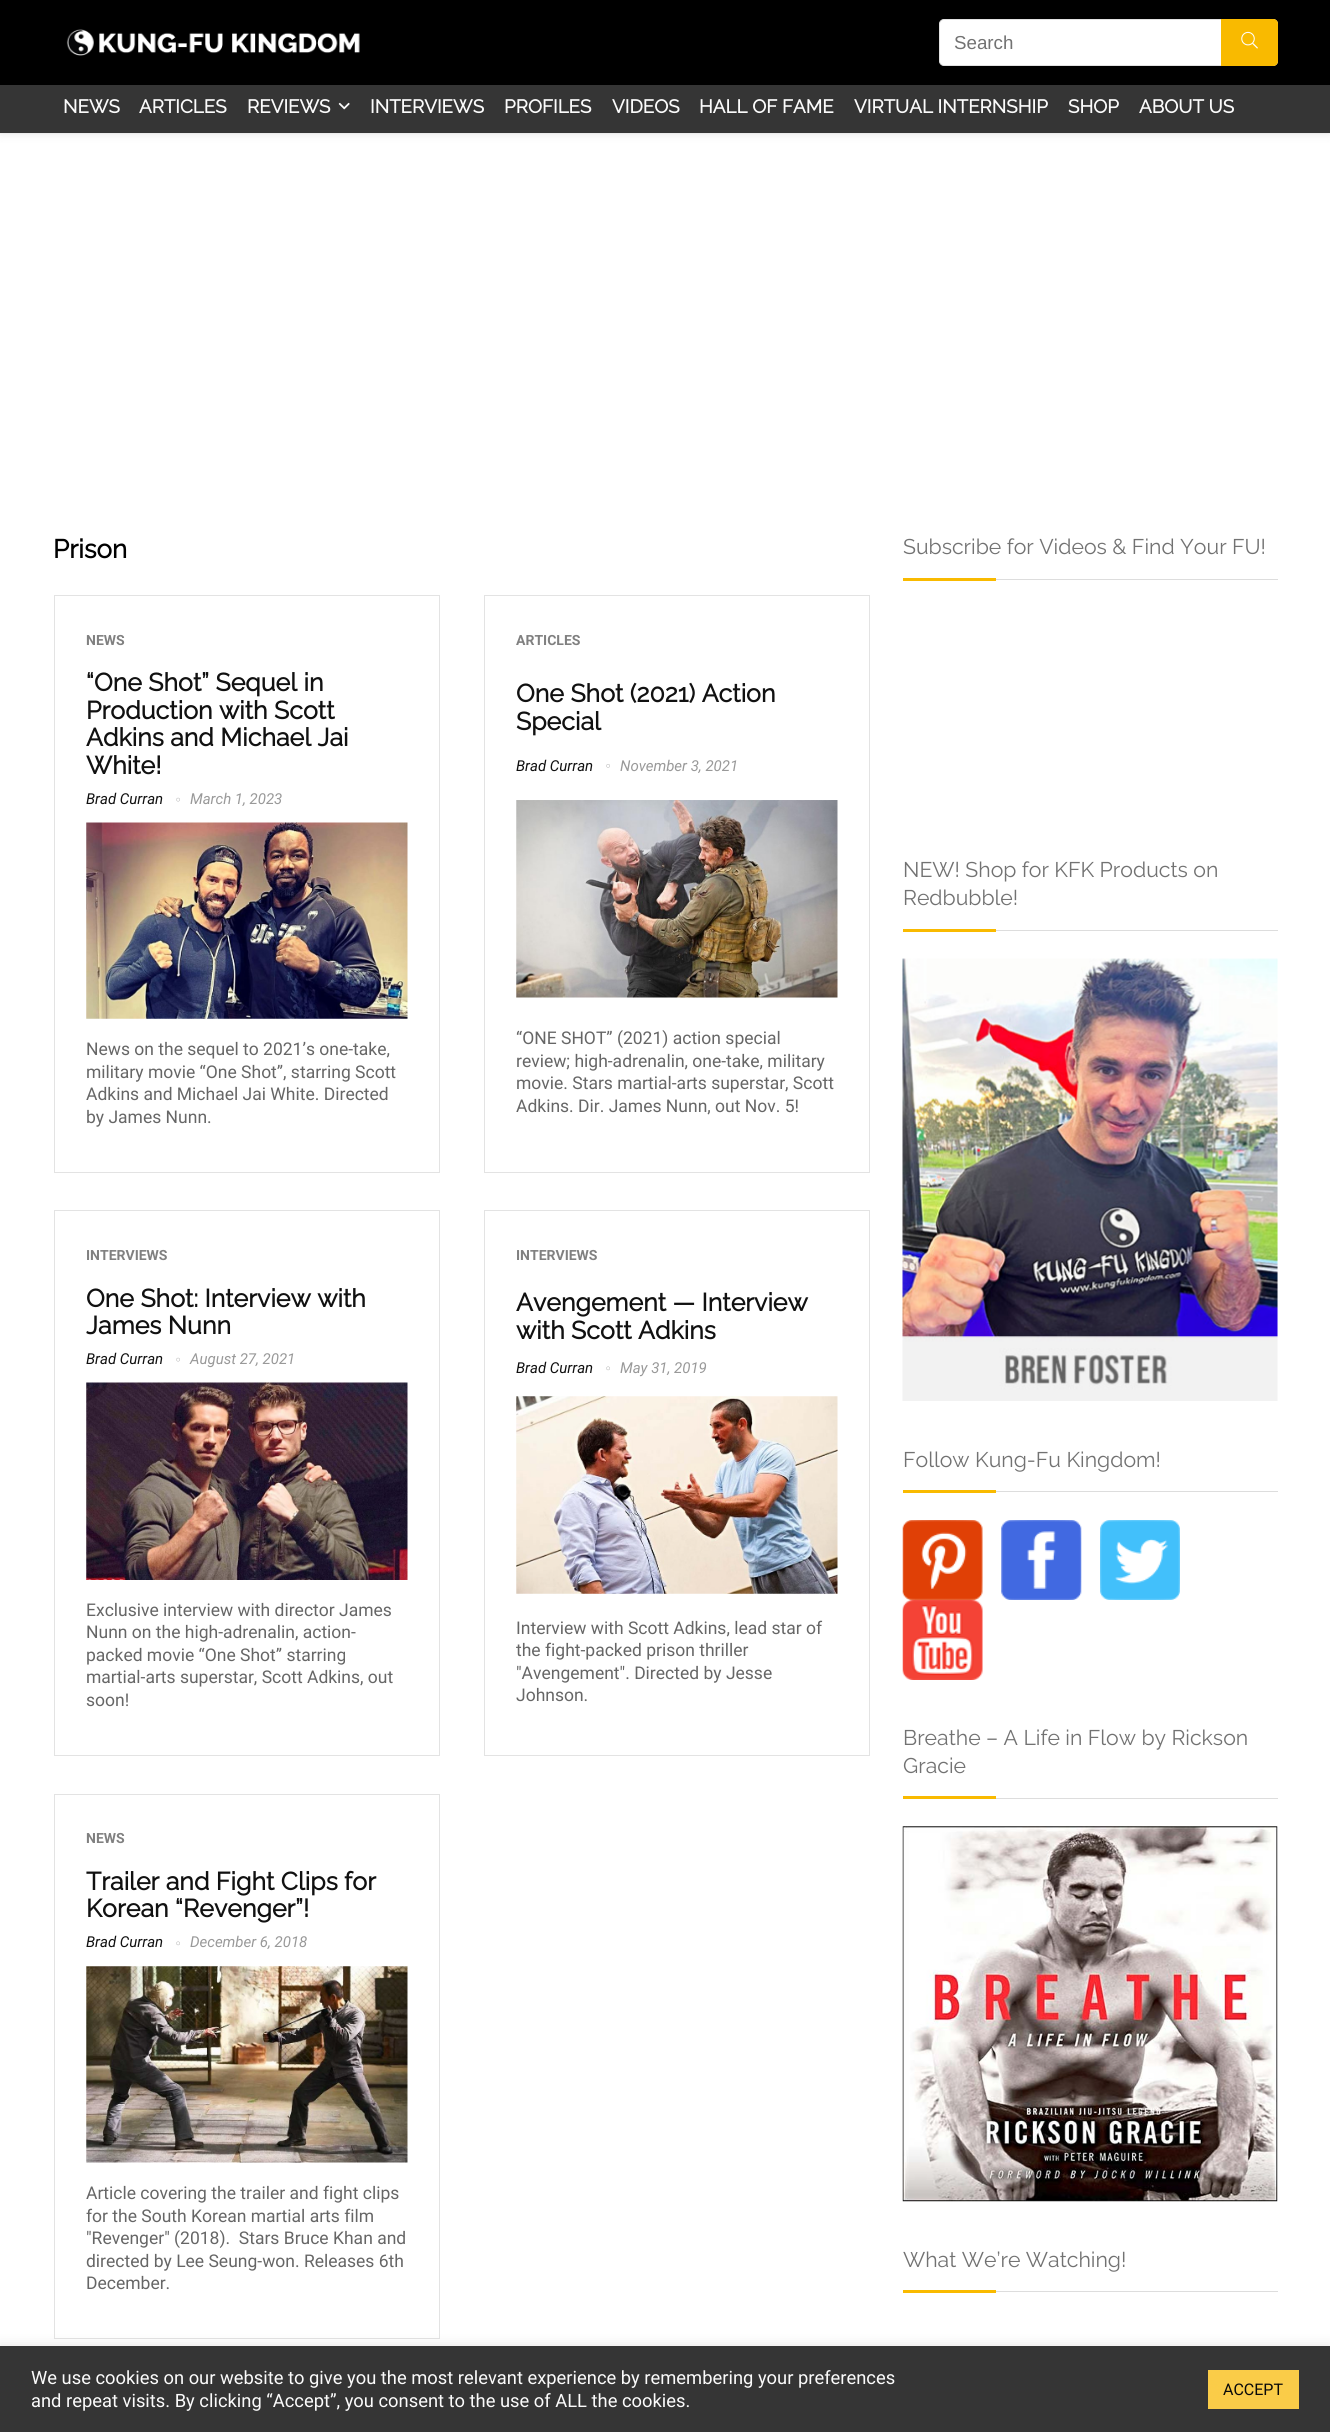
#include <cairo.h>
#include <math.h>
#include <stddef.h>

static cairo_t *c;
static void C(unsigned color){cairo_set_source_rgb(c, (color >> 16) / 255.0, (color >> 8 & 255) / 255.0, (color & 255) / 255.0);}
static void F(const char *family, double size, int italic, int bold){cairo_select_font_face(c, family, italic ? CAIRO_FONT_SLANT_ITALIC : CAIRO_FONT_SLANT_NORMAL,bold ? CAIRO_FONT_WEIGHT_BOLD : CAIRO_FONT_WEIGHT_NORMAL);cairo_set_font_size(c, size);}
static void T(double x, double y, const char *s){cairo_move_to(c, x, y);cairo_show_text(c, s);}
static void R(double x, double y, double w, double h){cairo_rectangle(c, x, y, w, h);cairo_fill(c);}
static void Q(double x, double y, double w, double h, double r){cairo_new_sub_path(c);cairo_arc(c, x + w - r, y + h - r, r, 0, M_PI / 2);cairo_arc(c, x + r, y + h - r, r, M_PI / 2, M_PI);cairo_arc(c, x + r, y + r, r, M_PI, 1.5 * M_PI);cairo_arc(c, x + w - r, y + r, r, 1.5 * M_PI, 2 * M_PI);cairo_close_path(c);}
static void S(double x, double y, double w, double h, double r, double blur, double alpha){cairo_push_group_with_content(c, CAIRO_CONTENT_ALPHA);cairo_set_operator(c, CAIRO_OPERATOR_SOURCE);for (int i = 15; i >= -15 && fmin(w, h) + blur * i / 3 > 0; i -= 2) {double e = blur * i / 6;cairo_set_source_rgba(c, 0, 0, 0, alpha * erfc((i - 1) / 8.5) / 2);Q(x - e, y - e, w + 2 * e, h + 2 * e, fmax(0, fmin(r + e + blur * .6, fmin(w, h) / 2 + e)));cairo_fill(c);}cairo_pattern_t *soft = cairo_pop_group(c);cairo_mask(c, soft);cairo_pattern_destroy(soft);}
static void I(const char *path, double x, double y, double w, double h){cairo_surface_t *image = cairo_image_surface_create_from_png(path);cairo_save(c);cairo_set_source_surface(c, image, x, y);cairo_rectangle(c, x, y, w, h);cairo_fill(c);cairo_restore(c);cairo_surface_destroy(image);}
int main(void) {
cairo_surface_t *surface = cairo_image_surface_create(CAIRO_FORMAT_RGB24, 1330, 2432);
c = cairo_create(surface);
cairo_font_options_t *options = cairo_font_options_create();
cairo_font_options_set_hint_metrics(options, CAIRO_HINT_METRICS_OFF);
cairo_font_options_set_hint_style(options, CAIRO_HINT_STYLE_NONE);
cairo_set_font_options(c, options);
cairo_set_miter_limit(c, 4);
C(0xffffff);
cairo_paint(c);
C(0x000000);
R(0,0,1330,85);
I("1.png",66,29,294,27);
C(0xffffff);
Q(939.5,19.5,338,46,4.5);
cairo_fill_preserve(c);
C(0xe1e1e1);
cairo_set_line_width(c,1);
cairo_stroke(c);
F("Liberation Sans",18.75,0,0);
C(0x727272);
T(954,49,"Search");
C(0xf9ba00);
cairo_new_path(c);
cairo_move_to(c,1221,19);
cairo_line_to(c,1273,19);
cairo_curve_to(c,1276,19,1278,21,1278,24);
cairo_line_to(c,1278,61);
cairo_curve_to(c,1278,64,1276,66,1273,66);
cairo_line_to(c,1221,66);
cairo_close_path(c);
cairo_fill(c);
I("2.png",1241,31,17,18);
cairo_rectangle(c,-.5,84.5,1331,49);
cairo_set_source_rgba(c,0,0,0,0.03);
cairo_stroke(c);
C(0x000000);
S(0,86,1330,48,0,5,.1);
C(0x353535);
R(0,85,1330,48);
F("Raleway",18.75,0,1);
C(0xfbfbfb);
T(63,113,"NEWS");
T(139,113,"ARTICLES");
T(247,113,"REVIEWS");
I("3.png",338,102,12,8);
T(370,113,"INTERVIEWS");
T(504,113,"PROFILES");
T(612,113,"VIDEOS");
T(699,113,"HALL OF FAME");
T(854,113,"VIRTUAL INTERNSHIP");
T(1068,113,"SHOP");
T(1139,113,"ABOUT US");
F("Raleway",26,0,1);
C(0x000000);
T(53,558,"Prison");
cairo_rectangle(c,54.5,595.5,385,577);
C(0xe3e3e3);
cairo_stroke(c);
F("Roboto",14,0,1);
C(0x808080);
T(86,645,"NEWS");
F("Raleway",25,0,1);
C(0x111111);
T(86,691,"“One Shot” Sequel in");
T(86,719,"Production with Scott");
T(86,746,"Adkins and Michael Jai");
T(86,774,"White!");
F("Roboto",15,1,0);
T(86,804,"Brad Curran");
I("4.png",176,797,4,5);
C(0x999999);
T(190,804,"March 1, 2023");
I("5.png",86,822,322,197);
F("Roboto",17.5,0,0);
C(0x666666);
T(86,1055,"News on the sequel to 2021’s one-take,");
T(86,1078,"military movie “One Shot”, starring Scott");
T(86,1100,"Adkins and Michael Jai White. Directed");
T(86,1123,"by James Nunn.");
cairo_rectangle(c,484.5,595.5,385,577);
C(0xe3e3e3);
cairo_stroke(c);
F("Roboto",14,0,1);
C(0x808080);
T(516,645,"ARTICLES");
F("Raleway",25,0,1);
C(0x111111);
T(516,702,"One Shot (2021) Action");
T(516,730,"Special");
F("Roboto",15,1,0);
T(516,771,"Brad Curran");
I("6.png",606,764,4,4);
C(0x999999);
T(620,771,"November 3, 2021");
I("7.png",516,800,322,198);
F("Roboto",17.5,0,0);
C(0x666666);
T(516,1044,"“ONE SHOT” (2021) action special");
T(516,1067,"review; high-adrenalin, one-take, military");
T(516,1089,"movie. Stars martial-arts superstar, Scott");
T(516,1112,"Adkins. Dir. James Nunn, out Nov. 5!");
cairo_rectangle(c,54.5,1210.5,385,545);
C(0xe3e3e3);
cairo_stroke(c);
F("Roboto",14,0,1);
C(0x808080);
T(86,1260,"INTERVIEWS");
F("Raleway",25,0,1);
C(0x111111);
T(86,1307,"One Shot: Interview with");
T(86,1334,"James Nunn");
F("Roboto",15,1,0);
T(86,1364,"Brad Curran");
I("4.png",176,1357,4,5);
C(0x999999);
T(190,1364,"August 27, 2021");
I("8.png",86,1382,322,198);
F("Roboto",17.5,0,0);
C(0x666666);
T(86,1616,"Exclusive interview with director James");
T(86,1638,"Nunn on the high-adrenalin, action-");
T(86,1661,"packed movie “One Shot” starring");
T(86,1683,"martial-arts superstar, Scott Adkins, out");
T(86,1706,"soon!");
cairo_rectangle(c,484.5,1210.5,385,545);
C(0xe3e3e3);
cairo_stroke(c);
F("Roboto",14,0,1);
C(0x808080);
T(516,1260,"INTERVIEWS");
F("Raleway",25,0,1);
C(0x111111);
T(516,1311,"Avengement — Interview");
T(516,1339,"with Scott Adkins");
F("Roboto",15,1,0);
T(516,1373,"Brad Curran");
I("9.png",606,1366,4,5);
C(0x999999);
T(620,1373,"May 31, 2019");
I("10.png",516,1396,322,198);
F("Roboto",17.5,0,0);
C(0x666666);
T(516,1634,"Interview with Scott Adkins, lead star of");
T(516,1656,"the fight-packed prison thriller");
T(516,1679,"\"Avengement\". Directed by Jesse");
T(516,1701,"Johnson.");
cairo_rectangle(c,54.5,1794.5,385,544);
C(0xe3e3e3);
cairo_stroke(c);
F("Roboto",14,0,1);
C(0x808080);
T(86,1843,"NEWS");
F("Raleway",25,0,1);
C(0x111111);
T(86,1890,"Trailer and Fight Clips for");
T(86,1917,"Korean “Revenger”!");
F("Roboto",15,1,0);
T(86,1947,"Brad Curran");
I("9.png",176,1941,4,5);
C(0x999999);
T(190,1947,"December 6, 2018");
I("11.png",86,1966,322,197);
F("Roboto",17.5,0,0);
C(0x666666);
T(86,2199,"Article covering the trailer and fight clips");
T(86,2222,"for the South Korean martial arts film");
T(86,2244,"\"Revenger\" (2018).  Stars Bruce Khan and");
T(86,2267,"directed by Lee Seung-won. Releases 6th");
T(86,2289,"December.");
C(0xdddddd);
R(996,579,282,1);
F("Raleway Thin",21.25,0,0);
C(0x727272);
T(903,554,"Subscribe for Videos & Find Your FU!");
C(0xf9ba00);
R(903,578,93,3);
C(0xdddddd);
R(996,930,282,1);
C(0x727272);
T(903,877,"NEW! Shop for KFK Products on");
T(903,905,"Redbubble!");
C(0xf9ba00);
R(903,929,93,3);
I("12.png",902,958,376,443);
C(0xdddddd);
R(996,1491,282,1);
C(0x727272);
T(903,1467,"Follow Kung-Fu Kingdom!");
C(0xf9ba00);
R(903,1490,93,3);
I("13.png",902,1520,81,80);
I("14.png",1001,1520,81,80);
I("15.png",1100,1520,80,80);
I("16.png",902,1600,81,80);
C(0xdddddd);
R(996,1798,282,1);
C(0x727272);
T(903,1745,"Breathe – A Life in Flow by Rickson");
T(903,1773,"Gracie");
C(0xf9ba00);
R(903,1796,93,3);
I("17.png",902,1826,376,376);
C(0xdddddd);
R(996,2291,282,1);
C(0x727272);
T(903,2267,"What We’re Watching!");
C(0xf9ba00);
R(903,2290,93,3);
C(0xacabab);
S(0,2345,1330,86,0,6,.3);
C(0x353535);
R(0,2346,1330,86);
F("Roboto",18.35,0,0);
C(0xfbfbfb);
T(31,2384,"We use cookies on our website to give you the most relevant experience by remembering your preferences");
T(31,2407,"and repeat visits. By clicking “Accept”, you consent to the use of ALL the cookies.");
C(0xfacc48);
R(1208,2370,91,39);
F("Roboto",16,0,0);
C(0x0a0a0a);
T(1223,2395,"ACCEPT");
cairo_surface_write_to_png(surface, "o.png");
cairo_font_options_destroy(options);
cairo_destroy(c);
cairo_surface_destroy(surface);
return 0;
}
